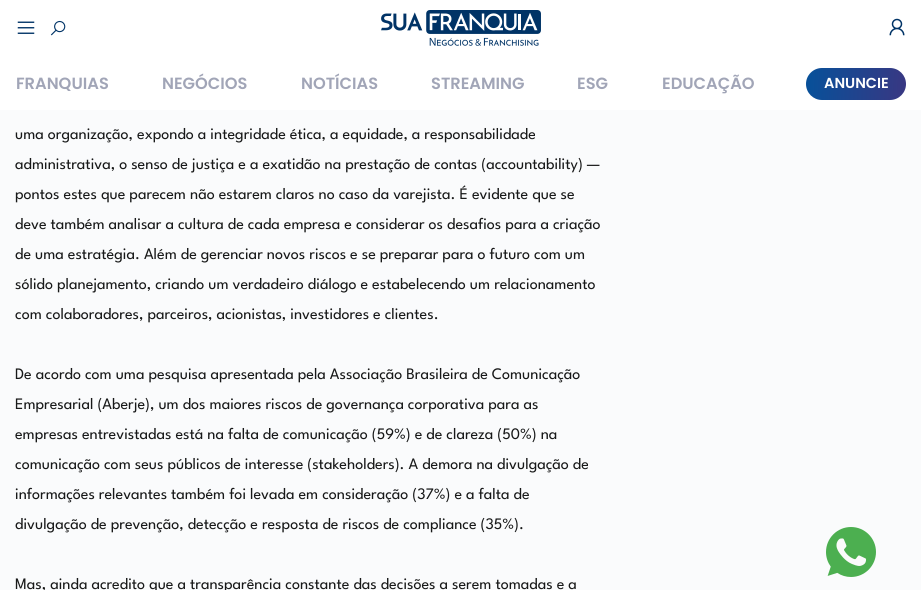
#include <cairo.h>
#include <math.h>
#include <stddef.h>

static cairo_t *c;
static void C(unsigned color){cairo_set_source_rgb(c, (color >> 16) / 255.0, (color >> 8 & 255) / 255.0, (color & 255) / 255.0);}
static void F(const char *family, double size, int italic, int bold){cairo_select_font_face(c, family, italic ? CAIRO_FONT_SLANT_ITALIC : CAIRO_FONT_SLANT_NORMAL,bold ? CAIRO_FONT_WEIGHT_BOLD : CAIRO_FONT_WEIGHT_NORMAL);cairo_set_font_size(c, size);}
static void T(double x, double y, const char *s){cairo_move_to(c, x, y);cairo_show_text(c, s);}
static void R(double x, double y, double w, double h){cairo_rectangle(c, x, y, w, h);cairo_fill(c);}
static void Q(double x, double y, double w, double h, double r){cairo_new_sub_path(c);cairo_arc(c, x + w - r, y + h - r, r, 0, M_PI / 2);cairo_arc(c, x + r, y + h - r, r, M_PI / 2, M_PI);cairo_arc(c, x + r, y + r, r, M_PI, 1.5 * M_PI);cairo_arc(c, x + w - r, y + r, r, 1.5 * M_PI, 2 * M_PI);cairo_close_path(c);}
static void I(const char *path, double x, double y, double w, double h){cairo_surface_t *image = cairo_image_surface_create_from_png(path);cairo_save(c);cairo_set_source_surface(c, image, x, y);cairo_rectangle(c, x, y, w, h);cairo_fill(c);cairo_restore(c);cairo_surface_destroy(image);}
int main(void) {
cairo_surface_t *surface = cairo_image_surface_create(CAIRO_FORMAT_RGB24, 921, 590);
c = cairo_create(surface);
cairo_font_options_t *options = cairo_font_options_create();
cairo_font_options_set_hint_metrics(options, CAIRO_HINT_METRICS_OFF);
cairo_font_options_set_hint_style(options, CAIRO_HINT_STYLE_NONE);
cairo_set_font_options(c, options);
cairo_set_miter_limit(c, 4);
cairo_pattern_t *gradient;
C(0xfafbfc);
cairo_paint(c);
C(0xffffff);
R(0,0,921,110);
I("1.png",17,21,18,13);
I("2.png",50,20,16,16);
I("3.png",381,10,160,36);
I("4.png",889,18,16,18);
F("Poppins SemiBold",16.25,0,0);
C(0xa1a5b7);
T(16,89,"FRANQUIAS");
T(162,89,"NEGÓCIOS");
T(301,89,"NOTÍCIAS");
T(431,89,"STREAMING");
T(577,89,"ESG");
T(662,89,"EDUCAÇÃO");
gradient = cairo_pattern_create_linear(805,80,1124,105);
cairo_pattern_add_color_stop_rgba(gradient,.01,0.031,0.314,0.6,1);
cairo_pattern_add_color_stop_rgba(gradient,1,0.647,0,0.314,1);
cairo_set_source(c,gradient);
cairo_pattern_destroy(gradient);
Q(806,68,100,32,16);
cairo_fill(c);
F("Poppins SemiBold",14.5,0,0);
C(0xffffff);
T(824,88,"ANUNCIE");
F("League Spartan Thin",16,0,0);
C(0x181919);
T(15,139,"uma organização, expondo a integridade ética, a equidade, a responsabilidade");
T(15,169,"administrativa, o senso de justiça e a exatidão na prestação de contas (accountability) —");
T(15,199,"pontos estes que parecem não estarem claros no caso da varejista. É evidente que se");
T(15,229,"deve também analisar a cultura de cada empresa e considerar os desafios para a criação");
T(15,259,"de uma estratégia. Além de gerenciar novos riscos e se preparar para o futuro com um");
T(15,289,"sólido planejamento, criando um verdadeiro diálogo e estabelecendo um relacionamento");
T(15,319,"com colaboradores, parceiros, acionistas, investidores e clientes.");
T(15,379,"De acordo com uma pesquisa apresentada pela Associação Brasileira de Comunicação");
T(15,409,"Empresarial (Aberje), um dos maiores riscos de governança corporativa para as");
T(15,439,"empresas entrevistadas está na falta de comunicação (59%) e de clareza (50%) na");
T(15,469,"comunicação com seus públicos de interesse (stakeholders). A demora na divulgação de");
T(15,499,"informações relevantes também foi levada em consideração (37%) e a falta de");
T(15,529,"divulgação de prevenção, detecção e resposta de riscos de compliance (35%).");
T(15,589,"Mas, ainda acredito que a transparência constante das decisões a serem tomadas e a");
I("5.png",826,527,50,50);
cairo_surface_write_to_png(surface, "o.png");
cairo_font_options_destroy(options);
cairo_destroy(c);
cairo_surface_destroy(surface);
return 0;
}
